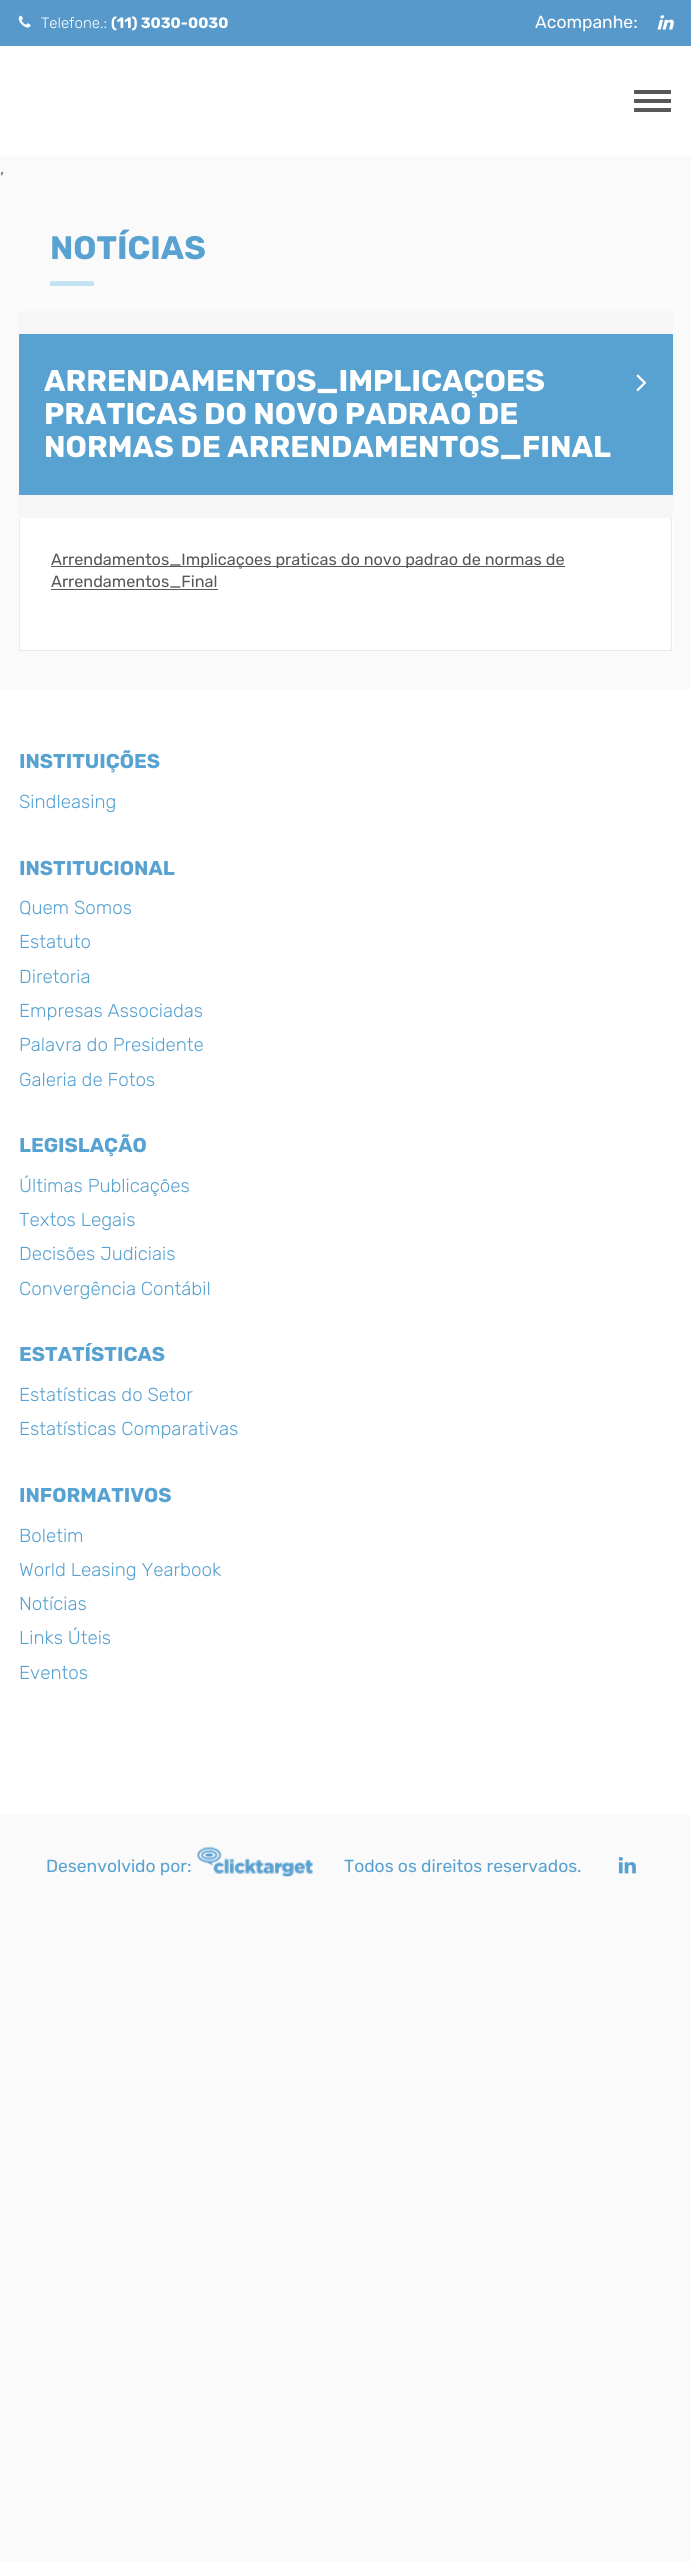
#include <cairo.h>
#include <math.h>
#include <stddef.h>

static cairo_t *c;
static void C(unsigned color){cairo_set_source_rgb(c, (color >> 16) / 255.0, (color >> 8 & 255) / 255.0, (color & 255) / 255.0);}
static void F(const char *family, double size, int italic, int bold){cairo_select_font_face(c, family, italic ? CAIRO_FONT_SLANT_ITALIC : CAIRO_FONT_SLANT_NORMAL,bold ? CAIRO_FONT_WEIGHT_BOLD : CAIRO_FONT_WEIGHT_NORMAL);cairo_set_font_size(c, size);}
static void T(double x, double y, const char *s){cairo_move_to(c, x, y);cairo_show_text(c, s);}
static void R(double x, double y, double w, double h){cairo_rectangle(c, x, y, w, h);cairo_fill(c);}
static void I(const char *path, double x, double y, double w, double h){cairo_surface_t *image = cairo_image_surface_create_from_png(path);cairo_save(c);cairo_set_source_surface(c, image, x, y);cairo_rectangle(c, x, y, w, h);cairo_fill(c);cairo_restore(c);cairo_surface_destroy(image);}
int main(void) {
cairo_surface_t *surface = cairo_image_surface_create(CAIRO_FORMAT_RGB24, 691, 2562);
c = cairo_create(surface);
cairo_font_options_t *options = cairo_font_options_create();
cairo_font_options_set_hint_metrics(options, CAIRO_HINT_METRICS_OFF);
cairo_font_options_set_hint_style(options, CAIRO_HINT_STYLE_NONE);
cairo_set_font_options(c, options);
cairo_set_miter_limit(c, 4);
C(0xfafafa);
cairo_paint(c);
C(0x5799ca);
R(0,0,691,46);
I("1.png",18,15,13,13);
F("Rubik Light",15,0,0);
C(0xffffff);
T(41,28,"Telefone.:");
F("Rubik",15,0,1);
T(111,28,"(11) 3030-0030");
F("Rubik",17.5,0,0);
T(535,28,"Acompanhe:");
I("2.png",657,15,17,15);
R(0,46,691,110);
C(0x575757);
R(634,90,37,4);
R(634,99,37,4);
R(634,108,37,4);
C(0x787878);
T(0,174,",");
F("Rubik",32.5,0,1);
C(0x57a2d1);
T(50,259,"NOTÍCIAS");
C(0xc2e3f2);
R(50,281,44,5);
C(0xf6f6f6);
R(19,311,654,207);
C(0x57a2d1);
R(19,334,654,161);
F("Rubik",30,0,1);
C(0xffffff);
T(44,391,"ARRENDAMENTOS_IMPLICAÇOES");
I("3.png",636,374,11,18);
T(44,424,"PRATICAS DO NOVO PADRAO DE");
T(44,457,"NORMAS DE ARRENDAMENTOS_FINAL");
R(20,518,653,132);
C(0xe9e9e9);
R(671,518,1,133);
R(19,650,654,1);
R(19,518,1,133);
C(0x575757);
R(51,566,514,1);
F("Rubik",16.25,0,0);
T(51,565,"Arrendamentos_Implicaçoes praticas do novo padrao de normas de");
T(51,587,"Arrendamentos_Final");
R(51,589,167,1);
C(0xffffff);
R(0,689,691,1126);
F("Rubik",20,0,1);
C(0x57a2d1);
T(19,768,"INSTITUIÇÕES");
F("Rubik Light",18.75,0,0);
T(19,808,"Sindleasing");
F("Rubik",20,0,1);
T(19,875,"INSTITUCIONAL");
F("Rubik Light",18.75,0,0);
T(19,914,"Quem Somos");
T(19,948,"Estatuto");
T(19,983,"Diretoria");
T(19,1017,"Empresas Associadas");
T(19,1051,"Palavra do Presidente");
T(19,1086,"Galeria de Fotos");
F("Rubik",20,0,1);
T(19,1152,"LEGISLAÇÃO");
F("Rubik Light",18.75,0,0);
T(19,1192,"Últimas Publicações");
T(19,1226,"Textos Legais");
T(19,1260,"Decisões Judiciais");
T(19,1295,"Convergência Contábil");
F("Rubik",20,0,1);
T(19,1361,"ESTATÍSTICAS");
F("Rubik Light",18.75,0,0);
T(19,1401,"Estatísticas do Setor");
T(19,1435,"Estatísticas Comparativas");
F("Rubik",20,0,1);
T(19,1502,"INFORMATIVOS");
F("Rubik Light",18.75,0,0);
T(19,1542,"Boletim");
T(19,1576,"World Leasing Yearbook");
T(19,1610,"Notícias");
T(19,1644,"Links Úteis");
T(19,1679,"Eventos");
F("Rubik",17.5,0,0);
T(46,1872,"Desenvolvido por:");
I("4.png",197,1847,116,30);
T(344,1872,"Todos os direitos reservados.");
I("5.png",618,1857,18,17);
cairo_surface_write_to_png(surface, "o.png");
cairo_font_options_destroy(options);
cairo_destroy(c);
cairo_surface_destroy(surface);
return 0;
}
